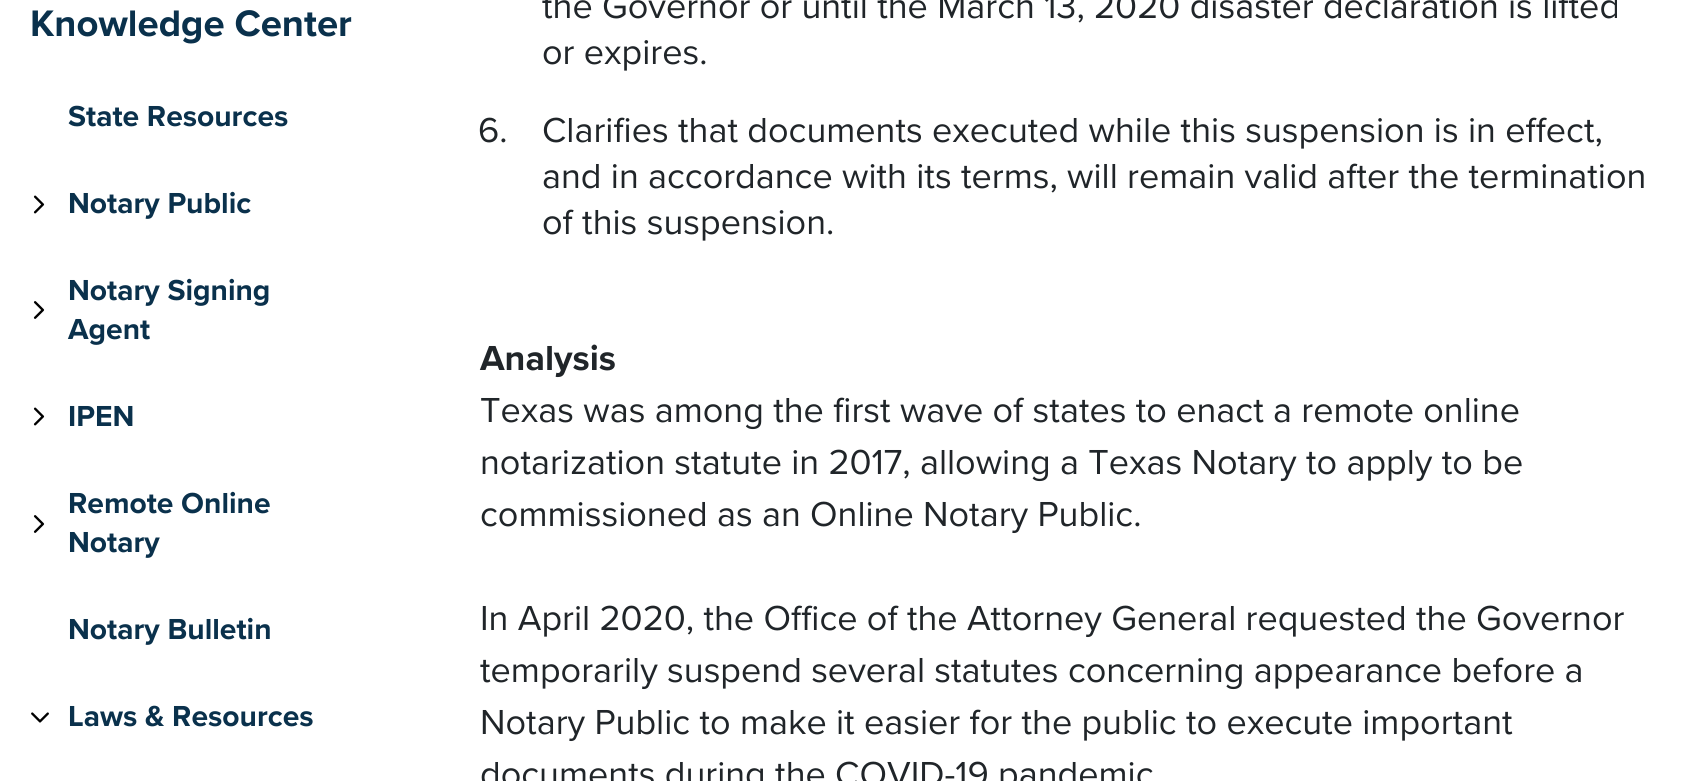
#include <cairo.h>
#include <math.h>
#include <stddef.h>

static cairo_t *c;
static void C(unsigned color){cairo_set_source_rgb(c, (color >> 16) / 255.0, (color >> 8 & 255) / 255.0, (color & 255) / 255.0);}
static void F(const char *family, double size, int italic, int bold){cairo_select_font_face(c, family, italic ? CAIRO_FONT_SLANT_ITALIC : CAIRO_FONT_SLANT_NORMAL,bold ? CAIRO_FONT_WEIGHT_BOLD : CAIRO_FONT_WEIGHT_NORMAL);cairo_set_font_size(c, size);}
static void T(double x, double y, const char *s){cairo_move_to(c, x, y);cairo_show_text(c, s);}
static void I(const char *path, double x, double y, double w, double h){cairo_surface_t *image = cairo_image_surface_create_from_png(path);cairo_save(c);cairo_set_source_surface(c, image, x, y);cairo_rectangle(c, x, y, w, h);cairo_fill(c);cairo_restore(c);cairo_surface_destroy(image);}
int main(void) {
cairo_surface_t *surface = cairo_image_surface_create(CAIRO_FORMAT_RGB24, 1702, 781);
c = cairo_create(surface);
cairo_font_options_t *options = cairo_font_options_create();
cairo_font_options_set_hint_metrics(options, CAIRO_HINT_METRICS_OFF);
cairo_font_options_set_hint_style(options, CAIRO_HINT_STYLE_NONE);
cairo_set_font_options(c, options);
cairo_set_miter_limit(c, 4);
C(0xffffff);
cairo_paint(c);
F("Proxima Nova",38.25,0,1);
C(0x0a314c);
T(30,36,"Knowledge Center");
F("Proxima Nova",30,0,1);
T(68,126,"State Resources");
I("1.png",33,195,12,19);
T(68,213,"Notary Public");
I("2.png",33,301,12,18);
T(68,300,"Notary Signing");
T(68,339,"Agent");
I("1.png",33,407,12,19);
T(68,426,"IPEN");
I("2.png",33,515,12,18);
T(68,513,"Remote Online");
T(68,552,"Notary");
T(68,639,"Notary Bulletin");
I("3.png",31,712,18,11);
T(68,726,"Laws & Resources");
F("Proxima Nova",36,0,0);
C(0x202529);
T(542,18,"the Governor or until the March 13, 2020 disaster declaration is lifted");
T(542,64,"or expires.");
T(478,142,"6.");
T(542,142,"Clarifies that documents executed while this suspension is in effect,");
T(542,188,"and in accordance with its terms, will remain valid after the termination");
T(542,234,"of this suspension.");
F("Proxima Nova",36,0,1);
T(480,370,"Analysis");
F("Proxima Nova",36,0,0);
T(480,422,"Texas was among the first wave of states to enact a remote online");
T(480,474,"notarization statute in 2017, allowing a Texas Notary to apply to be");
T(480,526,"commissioned as an Online Notary Public.");
T(480,630,"In April 2020, the Office of the Attorney General requested the Governor");
T(480,682,"temporarily suspend several statutes concerning appearance before a");
T(480,734,"Notary Public to make it easier for the public to execute important");
T(480,786,"documents during the COVID-19 pandemic");
cairo_surface_write_to_png(surface, "o.png");
cairo_font_options_destroy(options);
cairo_destroy(c);
cairo_surface_destroy(surface);
return 0;
}
